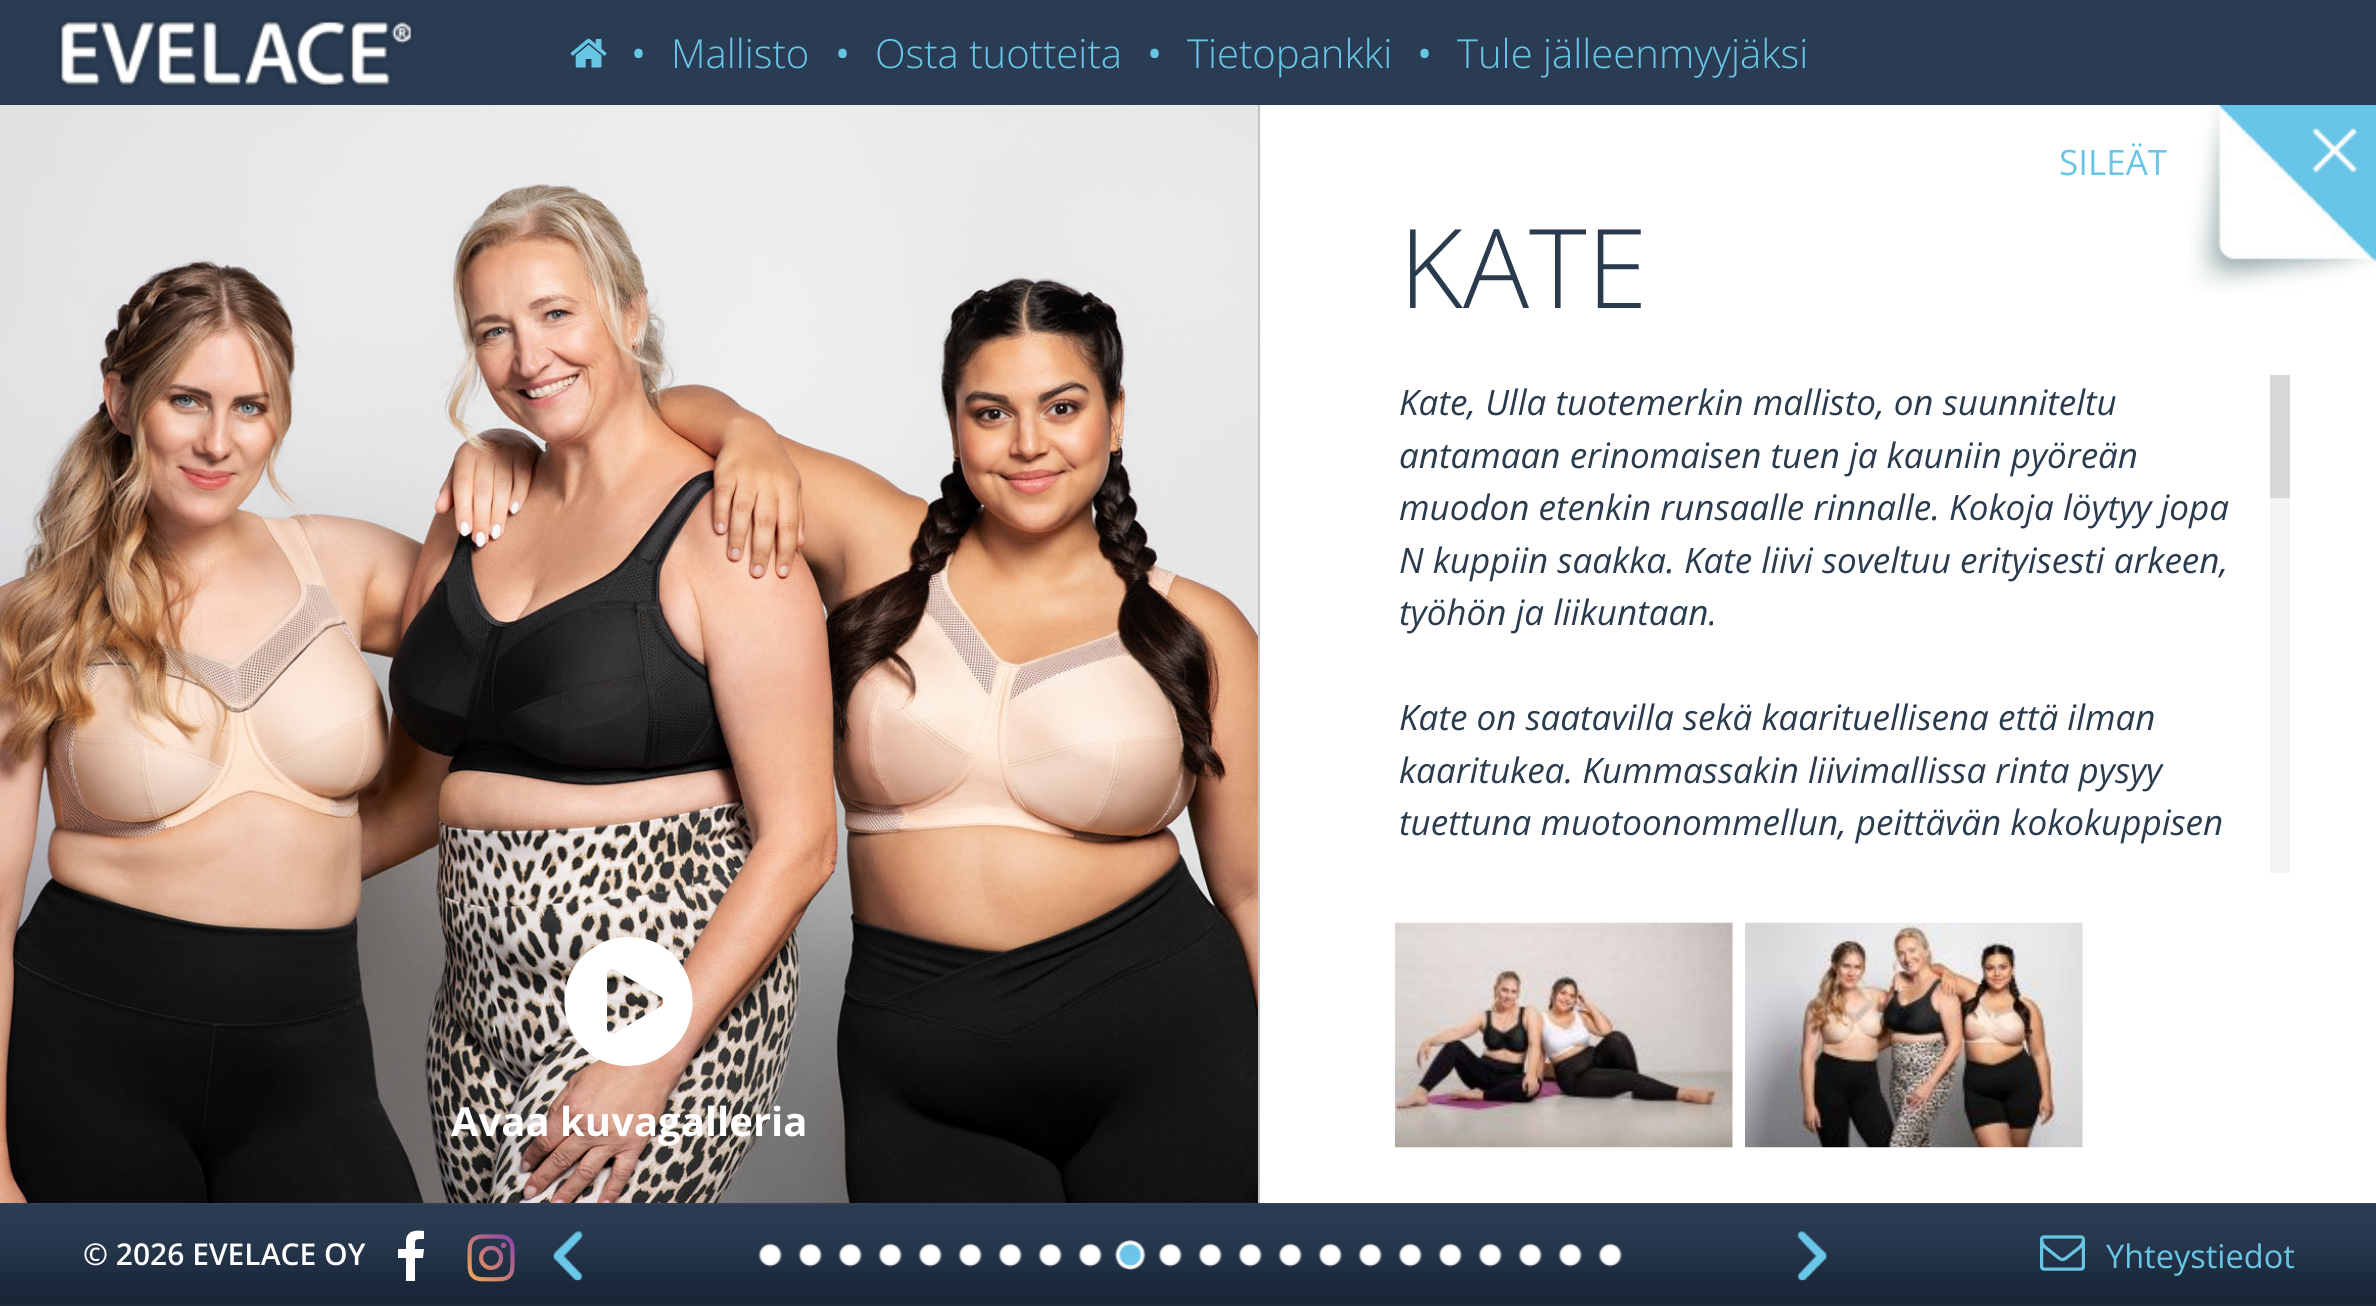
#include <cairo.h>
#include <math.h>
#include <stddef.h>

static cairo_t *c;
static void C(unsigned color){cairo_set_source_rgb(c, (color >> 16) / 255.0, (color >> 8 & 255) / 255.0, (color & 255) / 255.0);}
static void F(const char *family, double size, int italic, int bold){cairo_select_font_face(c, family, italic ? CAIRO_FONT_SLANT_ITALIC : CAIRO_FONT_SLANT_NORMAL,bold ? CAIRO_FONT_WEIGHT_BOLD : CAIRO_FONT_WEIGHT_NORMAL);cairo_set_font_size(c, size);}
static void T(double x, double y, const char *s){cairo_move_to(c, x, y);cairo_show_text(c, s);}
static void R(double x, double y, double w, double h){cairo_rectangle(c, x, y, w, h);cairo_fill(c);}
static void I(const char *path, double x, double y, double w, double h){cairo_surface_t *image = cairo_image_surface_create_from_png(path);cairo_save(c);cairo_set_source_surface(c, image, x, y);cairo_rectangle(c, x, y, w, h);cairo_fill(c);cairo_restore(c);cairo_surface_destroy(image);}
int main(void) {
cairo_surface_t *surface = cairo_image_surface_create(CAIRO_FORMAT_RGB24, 2376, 1306);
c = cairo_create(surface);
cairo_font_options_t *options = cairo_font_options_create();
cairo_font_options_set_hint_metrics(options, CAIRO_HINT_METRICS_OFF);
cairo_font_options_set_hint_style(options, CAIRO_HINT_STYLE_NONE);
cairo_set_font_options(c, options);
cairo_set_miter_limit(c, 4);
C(0xffffff);
cairo_paint(c);
C(0x2a3c53);
R(0,0,2376,105);
I("1.png",57,18,357,71);
I("2.png",570,38,37,30);
F("Open Sans",40,0,0);
C(0x68c6e5);
T(631,68,"•");
F("Open Sans Light",40,0,0);
T(671,68,"Mallisto");
F("Open Sans",40,0,0);
T(835,68,"•");
F("Open Sans Light",40,0,0);
T(875,68,"Osta tuotteita");
F("Open Sans",40,0,0);
T(1147,68,"•");
F("Open Sans Light",40,0,0);
T(1187,68,"Tietopankki");
F("Open Sans",40,0,0);
T(1417,68,"•");
F("Open Sans Light",40,0,0);
T(1457,68,"Tule jälleenmyyjäksi");
F("Open Sans",35,0,0);
T(2059,175,"SILEÄT");
I("3.png",2189,105,187,188);
F("Open Sans Light",110,0,0);
C(0x2a3b4d);
T(1399,308,"KATE");
F("Open Sans",35,1,0);
T(1399,415,"Kate, Ulla tuotemerkin mallisto, on suunniteltu");
T(1399,468,"antamaan erinomaisen tuen ja kauniin pyöreän");
T(1399,520,"muodon etenkin runsaalle rinnalle. Kokoja löytyy jopa");
T(1399,573,"N kuppiin saakka. Kate liivi soveltuu erityisesti arkeen,");
T(1399,625,"työhön ja liikuntaan.");
T(1399,730,"Kate on saatavilla sekä kaarituellisena että ilman");
T(1399,783,"kaaritukea. Kummassakin liivimallissa rinta pysyy");
T(1399,835,"tuettuna muotoonommellun, peittävän kokokuppisen");
C(0xf4f4f4);
R(2270,498,20,375);
C(0xd8d8d8);
R(2270,375,20,123);
I("4.png",1395,922,338,226);
I("5.png",1745,922,338,226);
I("6.png",0,105,1258,1098);
C(0xc4c4c4);
R(1258,105,2,1098);
C(0xffffff);
cairo_new_path(c);
cairo_move_to(c,596,946);
cairo_curve_to(c,607,939,620,936,633,937);
cairo_curve_to(c,696,941,715,1025,661,1057);
cairo_curve_to(c,650,1064,637,1066,624,1066);
cairo_curve_to(c,561,1062,542,978,596,946);
cairo_close_path(c);
cairo_move_to(c,661,1006);
cairo_curve_to(c,663,1005,663,1003,663,1001);
cairo_curve_to(c,663,999,663,998,661,997);
cairo_line_to(c,615,970);
cairo_curve_to(c,613,969,612,969,610,970);
cairo_curve_to(c,608,971,607,973,607,975);
cairo_line_to(c,607,1028);
cairo_curve_to(c,607,1030,608,1032,610,1033);
cairo_line_to(c,613,1034);
cairo_line_to(c,615,1033);
cairo_close_path(c);
cairo_fill(c);
F("Open Sans",40,0,1);
T(451,1136,"Avaa kuvagalleria");
I("7.png",0,1203,2376,103);
F("Open Sans SemiBold",30,0,0);
T(83,1265,"© 2026 EVELACE OY");
cairo_new_path(c);
cairo_move_to(c,424,1231);
cairo_line_to(c,424,1239);
cairo_curve_to(c,414,1239,415,1239,415,1249);
cairo_line_to(c,424,1249);
cairo_line_to(c,423,1258);
cairo_line_to(c,415,1258);
cairo_line_to(c,415,1281);
cairo_line_to(c,406,1281);
cairo_line_to(c,406,1258);
cairo_line_to(c,398,1258);
cairo_line_to(c,398,1249);
cairo_line_to(c,406,1249);
cairo_line_to(c,406,1240);
cairo_curve_to(c,407,1230,417,1230,424,1231);
cairo_close_path(c);
cairo_fill(c);
I("8.png",467,1234,48,48);
I("9.png",553,1231,30,50);
I("10.png",758,1243,24,24);
I("11.png",798,1243,24,24);
I("10.png",838,1243,24,24);
I("10.png",878,1243,24,24);
I("10.png",918,1243,24,24);
I("10.png",958,1243,24,24);
I("10.png",998,1243,24,24);
I("10.png",1038,1243,24,24);
I("10.png",1078,1243,24,24);
I("12.png",1114,1240,32,30);
I("10.png",1158,1243,24,24);
I("10.png",1198,1243,24,24);
I("10.png",1238,1243,24,24);
I("10.png",1278,1243,24,24);
I("11.png",1318,1243,24,24);
I("10.png",1358,1243,24,24);
I("10.png",1398,1243,24,24);
I("11.png",1438,1243,24,24);
I("10.png",1478,1243,24,24);
I("10.png",1518,1243,24,24);
I("10.png",1558,1243,24,24);
I("10.png",1598,1243,24,24);
I("13.png",1797,1231,30,50);
I("14.png",2040,1235,45,36);
F("Open Sans",32.5,0,0);
C(0x68c6e5);
T(2106,1268,"Yhteystiedot");
cairo_surface_write_to_png(surface, "o.png");
cairo_font_options_destroy(options);
cairo_destroy(c);
cairo_surface_destroy(surface);
return 0;
}
